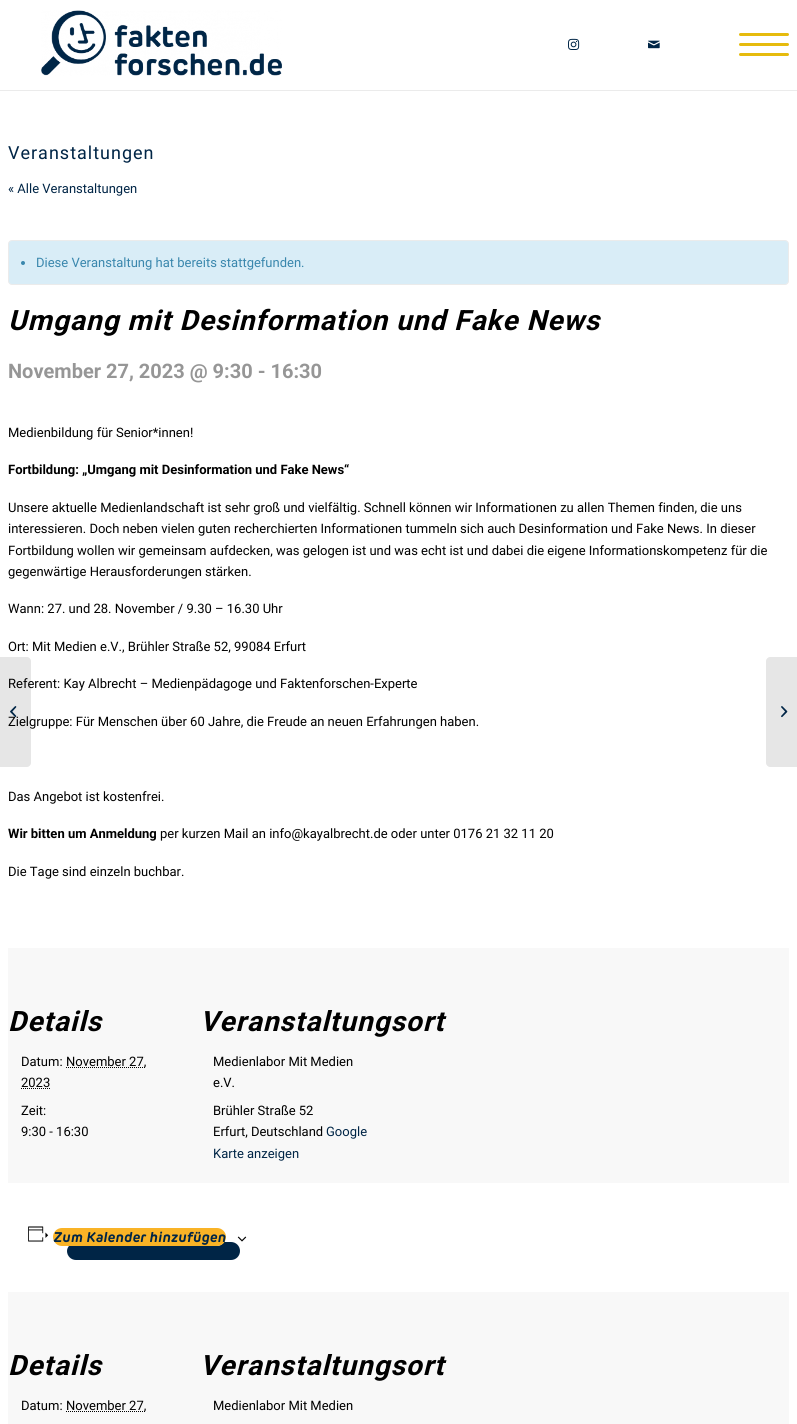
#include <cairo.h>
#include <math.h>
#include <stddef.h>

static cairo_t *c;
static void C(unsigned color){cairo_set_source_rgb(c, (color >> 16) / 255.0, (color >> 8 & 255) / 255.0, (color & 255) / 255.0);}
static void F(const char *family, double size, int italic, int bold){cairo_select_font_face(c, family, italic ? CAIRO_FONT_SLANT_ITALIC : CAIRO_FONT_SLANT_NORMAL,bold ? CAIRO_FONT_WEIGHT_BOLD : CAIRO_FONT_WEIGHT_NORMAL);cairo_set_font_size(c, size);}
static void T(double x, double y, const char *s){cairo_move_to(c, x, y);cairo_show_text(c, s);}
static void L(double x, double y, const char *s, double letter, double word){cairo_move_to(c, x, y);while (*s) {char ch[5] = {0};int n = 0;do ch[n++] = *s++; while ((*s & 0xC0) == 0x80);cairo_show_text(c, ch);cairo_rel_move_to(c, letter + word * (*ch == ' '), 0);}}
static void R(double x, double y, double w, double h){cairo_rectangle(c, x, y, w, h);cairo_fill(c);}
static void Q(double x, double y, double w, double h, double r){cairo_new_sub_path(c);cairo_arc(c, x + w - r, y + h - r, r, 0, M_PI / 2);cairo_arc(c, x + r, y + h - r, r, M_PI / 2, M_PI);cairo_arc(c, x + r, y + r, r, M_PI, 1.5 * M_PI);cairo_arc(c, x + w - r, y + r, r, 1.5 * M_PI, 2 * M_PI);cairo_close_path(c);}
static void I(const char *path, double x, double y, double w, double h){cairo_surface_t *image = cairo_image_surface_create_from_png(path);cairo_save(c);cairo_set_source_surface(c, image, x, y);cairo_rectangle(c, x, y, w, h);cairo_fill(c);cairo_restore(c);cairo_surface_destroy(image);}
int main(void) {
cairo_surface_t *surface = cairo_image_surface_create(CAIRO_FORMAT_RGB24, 797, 1424);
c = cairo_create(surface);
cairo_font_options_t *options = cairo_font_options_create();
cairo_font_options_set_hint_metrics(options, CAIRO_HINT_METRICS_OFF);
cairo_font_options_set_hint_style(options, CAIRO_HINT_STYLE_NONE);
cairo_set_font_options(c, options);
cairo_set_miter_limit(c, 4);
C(0xffffff);
cairo_paint(c);
C(0xebebeb);
R(0,90,797,1);
I("1.png",41,10,241,66);
I("2.png",568,38,12,12);
I("3.png",648,40,12,9);
C(0xe6bb0d);
Q(739,43,50,3,1.5);
cairo_fill(c);
Q(739,33,50,3,1.5);
cairo_fill(c);
Q(739,53,50,3,1.5);
cairo_fill(c);
F("Roboto",18,0,0);
C(0x002546);
L(8,159,"Veranstaltungen",1,0);
F("Roboto",13,0,0);
T(8,193,"« Alle Veranstaltungen");
C(0xd9edf7);
Q(8.5,240.5,780,44,3.5);
cairo_fill_preserve(c);
C(0xebebeb);
cairo_set_line_width(c,1);
cairo_stroke(c);
C(0x3a87ad);
cairo_arc(c,23,263,2,0,2 * M_PI);
cairo_fill(c);
T(36,267,"Diese Veranstaltung hat bereits stattgefunden.");
F("Roboto",28,1,1);
C(0x000000);
L(8,330,"Umgang mit Desinformation und Fake News",1,0);
F("Roboto",20,0,1);
C(0x969696);
T(8,378,"November 27, 2023 @ 9:30 - 16:30");
F("Roboto",13,0,0);
C(0x000000);
T(8,437,"Medienbildung für Senior*innen!");
F("Roboto",13,0,1);
T(8,474,"Fortbildung: „Umgang mit Desinformation und Fake News“");
F("Roboto",13,0,0);
T(8,512,"Unsere aktuelle Medienlandschaft ist sehr groß und vielfältig. Schnell können wir Informationen zu allen Themen finden, die uns");
T(8,533,"interessieren. Doch neben vielen guten recherchierten Informationen tummeln sich auch Desinformation und Fake News. In dieser");
T(8,555,"Fortbildung wollen wir gemeinsam aufdecken, was gelogen ist und was echt ist und dabei die eigene Informationskompetenz für die");
T(8,576,"gegenwärtige Herausforderungen stärken.");
T(8,613,"Wann: 27. und 28. November / 9.30 – 16.30 Uhr");
T(8,651,"Ort: Mit Medien e.V., Brühler Straße 52, 99084 Erfurt");
T(8,688,"Referent: Kay Albrecht – Medienpädagoge und Faktenforschen-Experte");
T(8,726,"Zielgruppe: Für Menschen über 60 Jahre, die Freude an neuen Erfahrungen haben.");
T(8,801,"Das Angebot ist kostenfrei.");
F("Roboto",13,0,1);
T(8,838,"Wir bitten um Anmeldung");
F("Roboto",13,0,0);
T(160,838,"per kurzen Mail an info@kayalbrecht.de oder unter 0176 21 32 11 20");
T(8,876,"Die Tage sind einzeln buchbar.");
C(0xf8f8f8);
R(8,948,781,235);
F("Roboto",28,1,1);
C(0x000000);
L(8,1031,"Details",1,0);
F("Roboto",13,0,0);
T(21,1066,"Datum:");
cairo_new_path(c);
cairo_move_to(c,66,1067.5);
cairo_line_to(c,146,1067.5);
cairo_set_dash(c,(double[]){1,1},2,0);
cairo_stroke(c);
T(66,1066,"November 27,");
T(21,1087,"2023");
cairo_new_path(c);
cairo_move_to(c,21,1088.5);
cairo_line_to(c,50,1088.5);
cairo_stroke(c);
T(21,1115,"Zeit:");
T(21,1136,"9:30 - 16:30");
F("Roboto",28,1,1);
L(200,1031,"Veranstaltungsort",1,0);
F("Roboto",13,0,0);
T(213,1066,"Medienlabor Mit Medien");
T(213,1087,"e.V.");
T(213,1115,"Brühler Straße 52");
T(213,1136,"Erfurt, Deutschland");
C(0x002546);
T(326,1136,"Google");
T(213,1158,"Karte anzeigen");
I("4.png",28,1226,21,16);
cairo_new_path(c);
cairo_move_to(c,69,1246);
cairo_curve_to(c,68,1247,67,1249,67,1251);
cairo_curve_to(c,67,1256,71,1260,76,1260);
cairo_line_to(c,231,1260);
cairo_curve_to(c,236,1260,240,1256,240,1251);
cairo_curve_to(c,240,1246,236,1242,231,1242);
cairo_line_to(c,224,1242);
cairo_curve_to(c,223,1244,220,1246,217,1246);
cairo_close_path(c);
cairo_fill(c);
C(0xf9b326);
Q(53,1228,173,18,9);
cairo_fill(c);
F("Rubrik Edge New",14,1,1);
C(0x002546);
T(53,1242,"Zum Kalender hinzufügen");
I("5.png",237,1236,10,6);
C(0xf8f8f8);
R(8,1292,781,132);
F("Roboto",28,1,1);
C(0x000000);
L(8,1375,"Details",1,0);
F("Roboto",13,0,0);
T(21,1410,"Datum:");
cairo_new_path(c);
cairo_move_to(c,66,1411.5);
cairo_line_to(c,146,1411.5);
cairo_stroke(c);
T(66,1410,"November 27,");
F("Roboto",28,1,1);
L(200,1375,"Veranstaltungsort",1,0);
F("Roboto",13,0,0);
T(213,1410,"Medienlabor Mit Medien");
cairo_set_source_rgba(c,0,0,0,0.1);
cairo_new_path(c);
cairo_move_to(c,0,657);
cairo_line_to(c,27,657);
cairo_curve_to(c,29,657,31,659,31,661);
cairo_line_to(c,31,763);
cairo_curve_to(c,31,765,29,767,27,767);
cairo_line_to(c,0,767);
cairo_close_path(c);
cairo_fill(c);
I("6.png",10,706,7,12);
C(0xe6e6e6);
cairo_new_path(c);
cairo_move_to(c,770,657);
cairo_line_to(c,797,657);
cairo_line_to(c,797,767);
cairo_line_to(c,770,767);
cairo_curve_to(c,768,767,766,765,766,763);
cairo_line_to(c,766,661);
cairo_curve_to(c,766,659,768,657,770,657);
cairo_close_path(c);
cairo_fill(c);
I("7.png",781,706,7,12);
cairo_surface_write_to_png(surface, "o.png");
cairo_font_options_destroy(options);
cairo_destroy(c);
cairo_surface_destroy(surface);
return 0;
}
